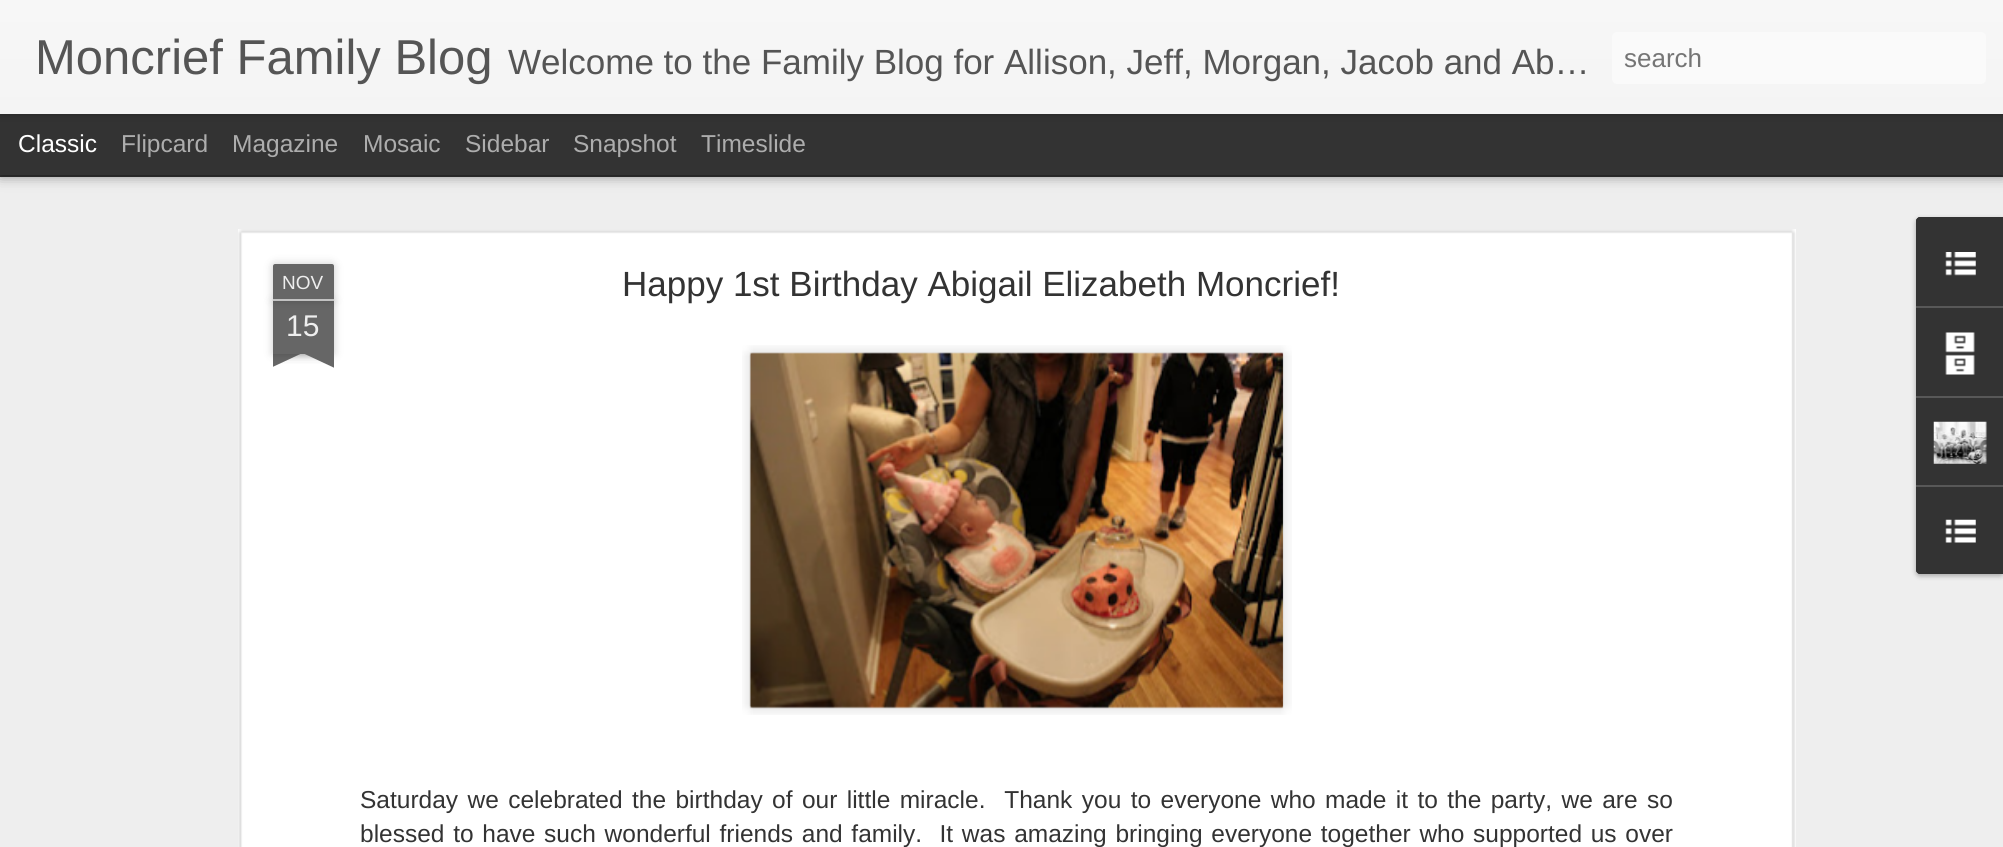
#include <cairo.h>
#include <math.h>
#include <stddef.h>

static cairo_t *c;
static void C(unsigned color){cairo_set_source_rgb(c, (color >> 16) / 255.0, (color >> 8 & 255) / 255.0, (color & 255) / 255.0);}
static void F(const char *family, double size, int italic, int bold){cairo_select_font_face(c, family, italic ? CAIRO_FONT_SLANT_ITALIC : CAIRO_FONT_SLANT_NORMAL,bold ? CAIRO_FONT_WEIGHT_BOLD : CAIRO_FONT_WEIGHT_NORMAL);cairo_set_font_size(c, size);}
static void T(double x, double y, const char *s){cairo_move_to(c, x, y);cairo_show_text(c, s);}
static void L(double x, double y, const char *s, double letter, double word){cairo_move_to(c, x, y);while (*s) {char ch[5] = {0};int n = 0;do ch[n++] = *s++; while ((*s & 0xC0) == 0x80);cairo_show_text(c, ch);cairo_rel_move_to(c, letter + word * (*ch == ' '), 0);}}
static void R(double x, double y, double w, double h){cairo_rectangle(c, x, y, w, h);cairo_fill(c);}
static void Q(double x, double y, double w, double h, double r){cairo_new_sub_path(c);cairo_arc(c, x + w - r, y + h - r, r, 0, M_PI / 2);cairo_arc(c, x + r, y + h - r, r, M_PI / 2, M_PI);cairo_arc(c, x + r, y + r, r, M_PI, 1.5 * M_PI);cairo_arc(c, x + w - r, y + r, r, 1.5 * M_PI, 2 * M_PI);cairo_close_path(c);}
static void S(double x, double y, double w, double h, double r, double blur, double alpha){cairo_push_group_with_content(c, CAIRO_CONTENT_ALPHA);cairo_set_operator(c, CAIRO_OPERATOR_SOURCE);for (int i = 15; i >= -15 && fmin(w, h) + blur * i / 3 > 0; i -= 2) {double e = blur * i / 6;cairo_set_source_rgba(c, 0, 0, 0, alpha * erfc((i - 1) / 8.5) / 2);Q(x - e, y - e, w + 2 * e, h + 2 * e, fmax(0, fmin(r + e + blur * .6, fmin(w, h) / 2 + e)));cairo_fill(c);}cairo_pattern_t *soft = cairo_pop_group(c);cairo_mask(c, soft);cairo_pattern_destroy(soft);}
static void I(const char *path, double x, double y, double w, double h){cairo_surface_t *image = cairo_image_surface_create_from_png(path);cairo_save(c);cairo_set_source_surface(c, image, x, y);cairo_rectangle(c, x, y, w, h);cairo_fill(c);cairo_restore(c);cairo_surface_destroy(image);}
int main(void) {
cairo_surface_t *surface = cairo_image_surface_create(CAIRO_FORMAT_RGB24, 2003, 847);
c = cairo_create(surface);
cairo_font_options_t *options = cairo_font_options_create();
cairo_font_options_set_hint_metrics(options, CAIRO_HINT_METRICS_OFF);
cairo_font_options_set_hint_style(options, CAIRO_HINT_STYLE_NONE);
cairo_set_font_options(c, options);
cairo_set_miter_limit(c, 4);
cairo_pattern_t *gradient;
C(0x333333);
cairo_paint(c);
C(0xeeeeee);
R(0,177,2003,670);
C(0x000000);
S(0,114,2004,61,0,7,.5);
C(0x333333);
R(0,114,2003,61);
C(0x000000);
S(0,0,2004,114,0,4.5,.3);
gradient = cairo_pattern_create_linear(0,0,0,114);
cairo_pattern_add_color_stop_rgba(gradient,0,0.969,0.969,0.969,1);
cairo_pattern_add_color_stop_rgba(gradient,1,0.957,0.957,0.957,1);
cairo_set_source(c,gradient);
cairo_pattern_destroy(gradient);
R(0,0,2003,114);
F("Liberation Sans",49,0,0);
C(0x555555);
T(35,74,"Moncrief Family Blog");
F("Liberation Sans",35,0,0);
T(508,74,"Welcome to the Family Blog for Allison, Jeff, Morgan, Jacob and Ab…");
C(0xfafafa);
Q(1612,32,374,52,5);
cairo_fill(c);
F("Liberation Sans",26,0,0);
C(0x757575);
T(1624,67,"search");
F("Liberation Sans",24.5,0,0);
C(0xffffff);
T(18,152,"Classic");
C(0xadadad);
T(121,152,"Flipcard");
T(232,152,"Magazine");
T(363,152,"Mosaic");
T(465,152,"Sidebar");
T(573,152,"Snapshot");
T(701,152,"Timeslide");
C(0xffffff);
R(238,229,1558,618);
I("1.png",238,229,1558,618);
C(0x000000);
S(273,301,61,53,0,4.5,.2);
C(0x666666);
R(273,301,61,53);
C(0x000000);
S(273,264,61,37,2,4.5,.2);
C(0x666666);
cairo_new_path(c);
cairo_move_to(c,275,264);
cairo_line_to(c,332,264);
cairo_curve_to(c,333,264,334,265,334,266);
cairo_line_to(c,334,301);
cairo_line_to(c,273,301);
cairo_line_to(c,273,266);
cairo_curve_to(c,273,265,274,264,275,264);
cairo_close_path(c);
cairo_fill(c);
C(0xc2c2c2);
R(273,299,61,2);
F("Liberation Sans",19,0,0);
C(0xeeeeee);
T(282,289,"NOV");
F("Liberation Sans",30,0,0);
T(286,336,"15");
cairo_save(c);
cairo_rectangle(c,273,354,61,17);
cairo_clip(c);
C(0x000000);
S(257,336,88,18,0,4.5,.2);
cairo_restore(c);
cairo_save(c);
cairo_rectangle(c,273,354,61,17);
cairo_clip(c);
C(0x666666);
cairo_new_path(c);
cairo_move_to(c,257,355);
cairo_line_to(c,336,318);
cairo_line_to(c,343,334);
cairo_line_to(c,264,371);
cairo_close_path(c);
cairo_fill(c);
cairo_restore(c);
cairo_save(c);
cairo_rectangle(c,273,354,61,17);
cairo_clip(c);
C(0x000000);
S(263,336,87,18,0,4.5,.2);
cairo_restore(c);
cairo_save(c);
cairo_rectangle(c,273,354,61,17);
cairo_clip(c);
C(0x666666);
cairo_new_path(c);
cairo_move_to(c,269,318);
cairo_line_to(c,349,355);
cairo_line_to(c,341,371);
cairo_line_to(c,262,334);
cairo_close_path(c);
cairo_fill(c);
cairo_restore(c);
F("Liberation Sans",35,0,0);
C(0x333333);
T(622,296,"Happy 1st Birthday Abigail Elizabeth Moncrief!");
I("2.png",742,345,550,370);
I("3.png",749,352,535,357);
F("Liberation Sans",24.5,0,0);
L(360,808,"Saturday we celebrated the birthday of our little miracle.  Thank you to everyone who made it to the party, we are so",0,2.6);
L(360,842,"blessed to have such wonderful friends and family.  It was amazing bringing everyone together who supported us over",0,1.9);
C(0x000000);
S(1916,219,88,357,4,2.5,.3);
C(0x333333);
cairo_new_path(c);
cairo_move_to(c,1920,217);
cairo_line_to(c,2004,217);
cairo_line_to(c,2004,574);
cairo_line_to(c,1920,574);
cairo_curve_to(c,1918,574,1916,572,1916,570);
cairo_line_to(c,1916,221);
cairo_curve_to(c,1916,219,1918,217,1920,217);
cairo_close_path(c);
cairo_fill(c);
cairo_new_path(c);
cairo_move_to(c,1920,217);
cairo_line_to(c,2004,217);
cairo_line_to(c,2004,306);
cairo_line_to(c,1916,306);
cairo_line_to(c,1916,221);
cairo_curve_to(c,1916,219,1918,217,1920,217);
cairo_close_path(c);
cairo_fill(c);
I("4.png",1945,252,31,24);
C(0x585858);
R(1916,306,87,2);
I("5.png",1945,332,30,43);
R(1916,396,87,2);
I("6.png",1933,421,54,43);
C(0x333333);
cairo_new_path(c);
cairo_move_to(c,1916,485);
cairo_line_to(c,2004,485);
cairo_line_to(c,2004,574);
cairo_line_to(c,1920,574);
cairo_curve_to(c,1918,574,1916,572,1916,570);
cairo_close_path(c);
cairo_fill(c);
C(0x585858);
R(1916,485,87,2);
I("7.png",1945,519,31,24);
cairo_surface_write_to_png(surface, "o.png");
cairo_font_options_destroy(options);
cairo_destroy(c);
cairo_surface_destroy(surface);
return 0;
}
